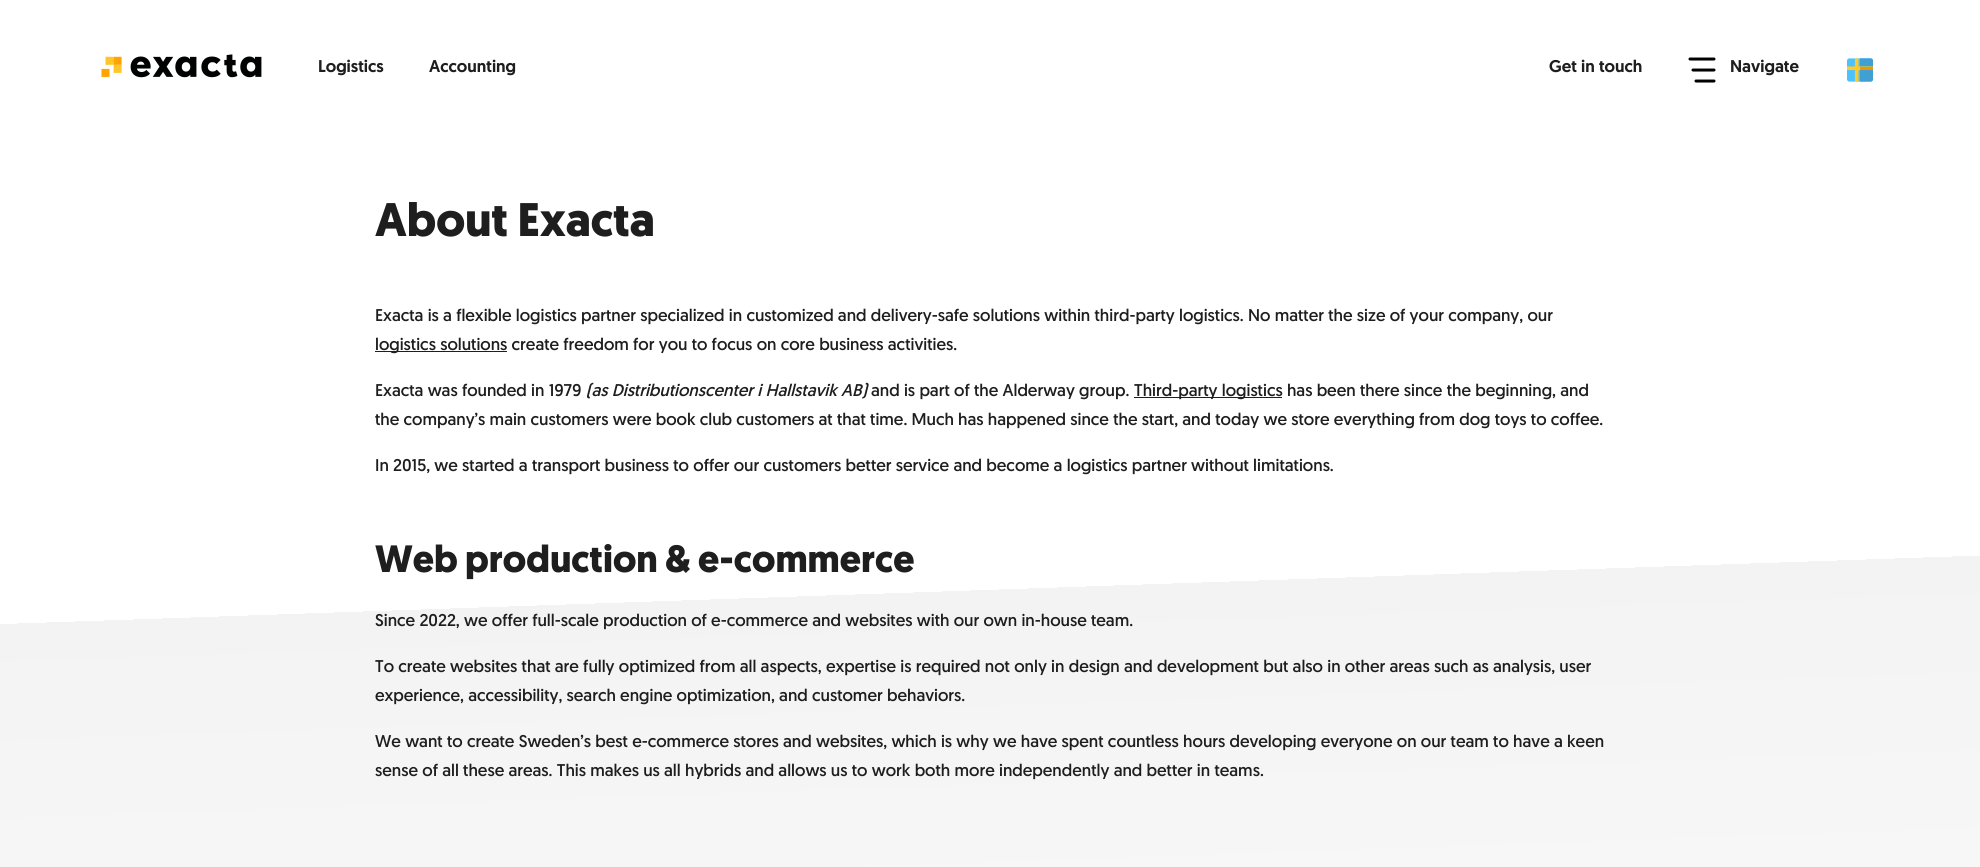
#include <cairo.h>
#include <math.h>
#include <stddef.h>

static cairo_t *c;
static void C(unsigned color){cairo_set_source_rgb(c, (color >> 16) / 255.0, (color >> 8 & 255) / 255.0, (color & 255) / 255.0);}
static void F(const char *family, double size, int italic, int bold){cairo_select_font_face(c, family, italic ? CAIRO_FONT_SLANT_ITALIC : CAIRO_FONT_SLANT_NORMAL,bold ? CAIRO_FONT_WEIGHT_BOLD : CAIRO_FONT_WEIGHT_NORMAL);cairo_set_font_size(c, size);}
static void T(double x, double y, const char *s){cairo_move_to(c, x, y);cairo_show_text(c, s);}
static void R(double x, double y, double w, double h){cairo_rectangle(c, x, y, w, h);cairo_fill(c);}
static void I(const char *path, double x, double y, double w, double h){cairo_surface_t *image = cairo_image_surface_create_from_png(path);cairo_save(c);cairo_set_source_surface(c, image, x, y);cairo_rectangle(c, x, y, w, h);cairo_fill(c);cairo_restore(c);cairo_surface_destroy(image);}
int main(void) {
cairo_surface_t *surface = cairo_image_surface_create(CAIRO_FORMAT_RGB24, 1980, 867);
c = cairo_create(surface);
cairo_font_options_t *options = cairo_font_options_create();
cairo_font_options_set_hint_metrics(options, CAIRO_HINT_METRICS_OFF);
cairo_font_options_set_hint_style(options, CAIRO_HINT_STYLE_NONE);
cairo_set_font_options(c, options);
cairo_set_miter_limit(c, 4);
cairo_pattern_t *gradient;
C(0xffffff);
cairo_paint(c);
I("1.png",101,54,161,24);
F("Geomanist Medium",17,0,0);
C(0x1e1e1e);
T(318,72,"Logistics");
T(429,72,"Accounting");
T(1549,72,"Get in touch");
cairo_new_path(c);
cairo_move_to(c,1693,70);
cairo_line_to(c,1714,70);
cairo_move_to(c,1690,59);
cairo_line_to(c,1714,59);
cairo_move_to(c,1696,81);
cairo_line_to(c,1714,81);
C(0x000000);
cairo_set_line_width(c,3);
cairo_set_line_cap(c,CAIRO_LINE_CAP_ROUND);
cairo_set_line_join(c,CAIRO_LINE_JOIN_ROUND);
cairo_stroke(c);
C(0x1e1e1e);
T(1730,72,"Navigate");
I("2.png",1847,58,26,24);
gradient = cairo_pattern_create_linear(1017,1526,963,-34);
cairo_pattern_add_color_stop_rgba(gradient,0,1,1,1,1);
cairo_pattern_add_color_stop_rgba(gradient,.6,0.953,0.953,0.953,1);
cairo_pattern_add_color_stop_rgba(gradient,.6,1,1,1,1);
cairo_pattern_add_color_stop_rgba(gradient,1,1,1,1,1);
cairo_set_source(c,gradient);
cairo_pattern_destroy(gradient);
R(0,556,1980,311);
F("Geomanist",47,0,1);
C(0x1e1e1e);
T(375,236,"About Exacta");
F("Geomanist",17,0,0);
T(375,321,"Exacta is a flexible logistics partner specialized in customized and delivery-safe solutions within third-party logistics. No matter the size of your company, our");
R(375,351,132,1);
T(375,350,"logistics solutions create freedom for you to focus on core business activities.");
T(375,396,"Exacta was founded in 1979");
F("Geomanist",17,1,0);
T(586,396,"(as Distributionscenter i Hallstavik AB)");
F("Geomanist",17,0,0);
T(871,396,"and is part of the Alderway group.");
R(1134,397,148,1);
T(1134,396,"Third-party logistics has been there since the beginning, and");
T(375,425,"the company’s main customers were book club customers at that time. Much has happened since the start, and today we store everything from dog toys to coffee.");
T(375,471,"In 2015, we started a transport business to offer our customers better service and become a logistics partner without limitations.");
F("Geomanist",38,0,1);
T(375,572,"Web production & e-commerce");
F("Geomanist",17,0,0);
T(375,626,"Since 2022, we offer full-scale production of e-commerce and websites with our own in-house team.");
T(375,672,"To create websites that are fully optimized from all aspects, expertise is required not only in design and development but also in other areas such as analysis, user");
T(375,701,"experience, accessibility, search engine optimization, and customer behaviors.");
T(375,747,"We want to create Sweden’s best e-commerce stores and websites, which is why we have spent countless hours developing everyone on our team to have a keen");
T(375,776,"sense of all these areas. This makes us all hybrids and allows us to work both more independently and better in teams.");
cairo_surface_write_to_png(surface, "o.png");
cairo_font_options_destroy(options);
cairo_destroy(c);
cairo_surface_destroy(surface);
return 0;
}
